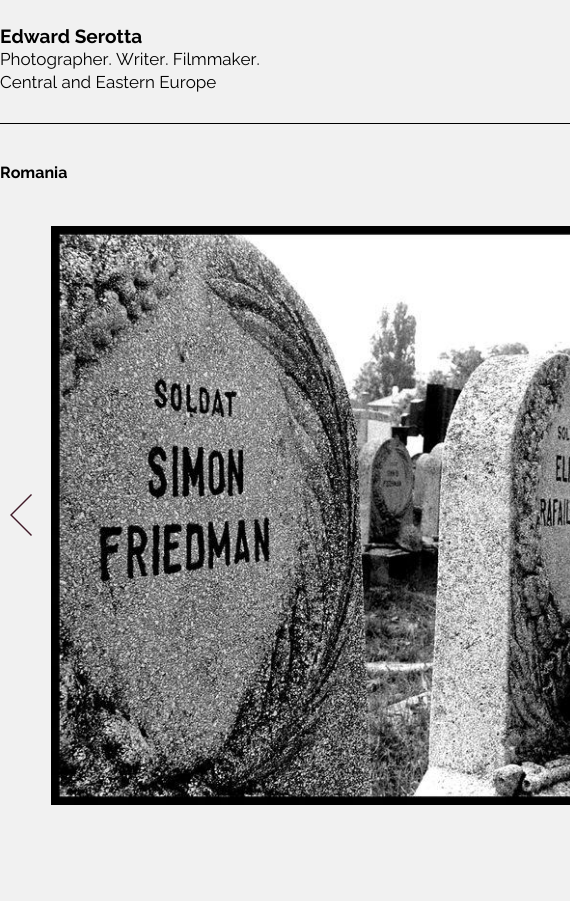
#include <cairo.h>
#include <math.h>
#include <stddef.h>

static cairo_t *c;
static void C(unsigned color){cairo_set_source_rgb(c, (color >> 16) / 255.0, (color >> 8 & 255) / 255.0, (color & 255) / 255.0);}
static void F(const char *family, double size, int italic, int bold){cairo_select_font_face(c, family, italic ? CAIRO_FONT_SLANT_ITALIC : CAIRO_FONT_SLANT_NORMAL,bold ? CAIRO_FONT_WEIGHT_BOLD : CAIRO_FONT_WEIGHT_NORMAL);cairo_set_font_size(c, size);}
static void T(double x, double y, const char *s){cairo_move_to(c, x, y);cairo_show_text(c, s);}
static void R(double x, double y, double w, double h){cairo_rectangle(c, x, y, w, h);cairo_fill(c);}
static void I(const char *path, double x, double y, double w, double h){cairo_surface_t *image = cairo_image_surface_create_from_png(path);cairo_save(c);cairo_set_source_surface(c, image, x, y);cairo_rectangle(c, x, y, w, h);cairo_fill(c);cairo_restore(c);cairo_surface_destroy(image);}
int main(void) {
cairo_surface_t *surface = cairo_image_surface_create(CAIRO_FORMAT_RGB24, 570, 901);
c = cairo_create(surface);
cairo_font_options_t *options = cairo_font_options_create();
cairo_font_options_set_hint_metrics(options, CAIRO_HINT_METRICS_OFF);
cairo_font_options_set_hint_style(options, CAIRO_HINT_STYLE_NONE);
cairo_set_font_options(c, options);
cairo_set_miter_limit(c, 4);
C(0xf1f1f1);
cairo_paint(c);
C(0x000000);
R(0,123,570,1);
F("Raleway",19,0,1);
T(0,43,"Edward Serotta");
F("Raleway",17,0,0);
T(0,65,"Photographer. Writer. Filmmaker.");
T(0,88,"Central and Eastern Europe");
F("Raleway",16,0,1);
T(0,178,"Romania");
C(0x411b29);
cairo_new_path(c);
cairo_move_to(c,31,536);
cairo_line_to(c,10,515);
cairo_line_to(c,31,494);
cairo_line_to(c,32,495);
cairo_line_to(c,12,515);
cairo_line_to(c,32,535);
cairo_close_path(c);
cairo_fill(c);
I("1.png",51,226,519,579);
cairo_surface_write_to_png(surface, "o.png");
cairo_font_options_destroy(options);
cairo_destroy(c);
cairo_surface_destroy(surface);
return 0;
}
